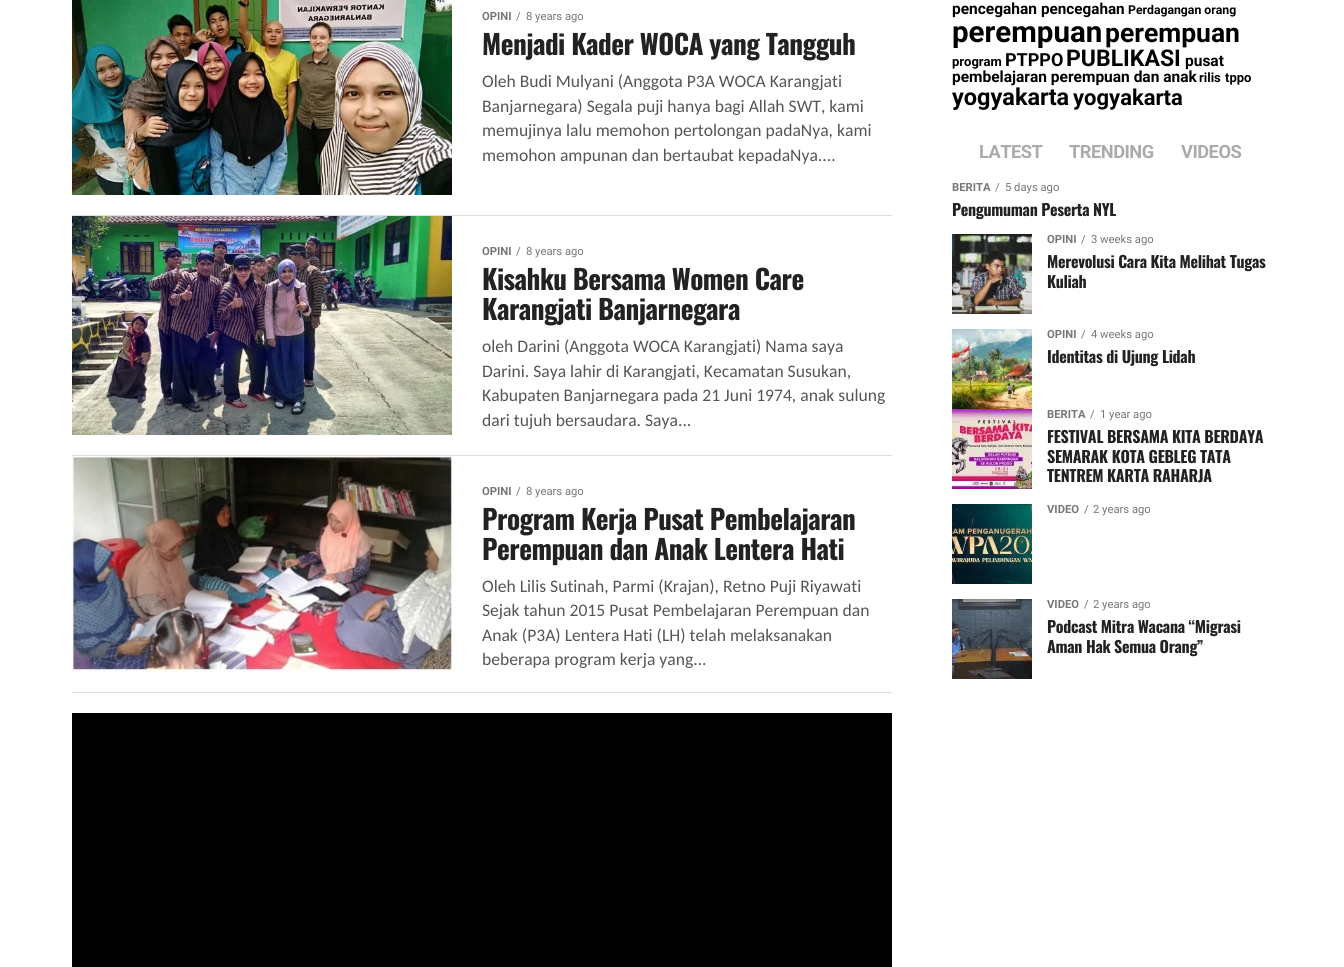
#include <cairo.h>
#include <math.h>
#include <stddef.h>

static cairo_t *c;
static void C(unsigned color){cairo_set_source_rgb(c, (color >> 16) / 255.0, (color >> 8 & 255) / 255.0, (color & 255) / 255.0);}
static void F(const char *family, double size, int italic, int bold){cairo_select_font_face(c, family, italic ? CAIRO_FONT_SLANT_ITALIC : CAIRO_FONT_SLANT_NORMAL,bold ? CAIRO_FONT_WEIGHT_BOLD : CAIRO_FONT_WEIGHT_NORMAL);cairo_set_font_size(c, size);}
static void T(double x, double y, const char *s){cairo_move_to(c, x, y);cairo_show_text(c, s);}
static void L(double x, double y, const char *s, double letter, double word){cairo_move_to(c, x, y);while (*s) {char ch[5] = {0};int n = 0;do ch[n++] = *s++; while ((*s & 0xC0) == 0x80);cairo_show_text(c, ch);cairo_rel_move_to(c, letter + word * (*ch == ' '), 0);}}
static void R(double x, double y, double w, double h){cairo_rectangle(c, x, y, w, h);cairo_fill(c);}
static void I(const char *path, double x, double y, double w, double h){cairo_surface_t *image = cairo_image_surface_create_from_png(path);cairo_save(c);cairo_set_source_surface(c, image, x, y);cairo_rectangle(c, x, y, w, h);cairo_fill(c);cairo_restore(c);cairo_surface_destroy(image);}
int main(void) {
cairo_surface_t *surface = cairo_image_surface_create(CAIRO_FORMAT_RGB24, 1344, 967);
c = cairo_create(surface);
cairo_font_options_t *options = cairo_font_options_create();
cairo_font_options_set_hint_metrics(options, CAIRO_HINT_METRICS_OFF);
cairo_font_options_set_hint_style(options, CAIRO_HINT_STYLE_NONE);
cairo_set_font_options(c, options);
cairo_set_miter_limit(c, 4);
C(0xffffff);
cairo_paint(c);
I("1.png",72,0,380,195);
F("Roboto",11.25,0,1);
C(0x777777);
T(482,20,"OPINI");
F("Roboto",11.25,0,0);
T(516,20,"/");
T(526,20,"8 years ago");
F("Oswald",27.25,0,1);
C(0x222222);
L(482,55,"Menjadi Kader WOCA yang Tangguh",-.55,0);
F("Carlito",17.6,0,0);
C(0x555555);
T(482,87,"Oleh Budi Mulyani (Anggota P3A WOCA Karangjati");
T(482,112,"Banjarnegara) Segala puji hanya bagi Allah SWT, kami");
T(482,136,"memujinya lalu memohon pertolongan padaNya, kami");
T(482,161,"memohon ampunan dan bertaubat kepadaNya....");
C(0xdddddd);
R(72,215,820,1);
I("2.png",72,216,380,219);
F("Roboto",11.25,0,1);
C(0x777777);
T(482,255,"OPINI");
F("Roboto",11.25,0,0);
T(516,255,"/");
T(526,255,"8 years ago");
F("Oswald",27.25,0,1);
C(0x222222);
L(482,290,"Kisahku Bersama Women Care",-.55,0);
L(482,320,"Karangjati Banjarnegara",-.55,0);
F("Carlito",17.6,0,0);
C(0x555555);
T(482,352,"oleh Darini (Anggota WOCA Karangjati) Nama saya");
T(482,377,"Darini. Saya lahir di Karangjati, Kecamatan Susukan,");
T(482,401,"Kabupaten Banjarnegara pada 21 Juni 1974, anak sulung");
T(482,426,"dari tujuh bersaudara. Saya...");
C(0xdddddd);
R(72,455,820,1);
I("3.png",72,456,380,216);
F("Roboto",11.25,0,1);
C(0x777777);
T(482,495,"OPINI");
F("Roboto",11.25,0,0);
T(516,495,"/");
T(526,495,"8 years ago");
F("Oswald",27.25,0,1);
C(0x222222);
L(482,530,"Program Kerja Pusat Pembelajaran",-.55,0);
L(482,560,"Perempuan dan Anak Lentera Hati",-.55,0);
F("Carlito",17.6,0,0);
C(0x555555);
T(482,592,"Oleh Lilis Sutinah, Parmi (Krajan), Retno Puji Riyawati");
T(482,616,"Sejak tahun 2015 Pusat Pembelajaran Perempuan dan");
T(482,641,"Anak (P3A) Lentera Hati (LH) telah melaksanakan");
T(482,665,"beberapa program kerja yang...");
C(0xdddddd);
R(72,692,820,1);
C(0x000000);
R(72,713,820,254);
F("Roboto",15.5,0,1);
T(952,14,"pencegahan");
F("Roboto",15.25,0,1);
T(1041,14,"pencegahan");
F("Roboto",12.25,0,1);
T(1128,14,"Perdagangan orang");
F("Roboto",29.5,0,1);
T(952,42,"perempuan");
F("Roboto",26.5,0,1);
T(1105,42,"perempuan");
F("Roboto",13,0,1);
T(952,66,"program");
F("Roboto",18,0,1);
T(1005,66,"PTPPO");
F("Roboto",23,0,1);
T(1066,66,"PUBLIKASI");
F("Roboto",15.5,0,1);
T(1185,66,"pusat");
T(952,82,"pembelajaran perempuan dan anak");
F("Roboto",13,0,1);
T(1199,82,"rilis");
T(1225,82,"tppo");
F("Roboto",23.5,0,1);
T(952,105,"yogyakarta");
F("Roboto",22,0,1);
T(1073,105,"yogyakarta");
F("Roboto",18.25,0,1);
C(0xaaaaaa);
L(979,158,"LATEST",-.5,0);
L(1069,158,"TRENDING",-.5,0);
L(1181,158,"VIDEOS",-.5,0);
F("Roboto",11.25,0,1);
C(0x777777);
T(952,191,"BERITA");
F("Roboto",11.25,0,0);
T(995,191,"/");
T(1005,191,"5 days ago");
F("Oswald",16,0,1);
C(0x222222);
L(952,216,"Pengumuman Peserta NYL",-.3,0);
I("4.png",952,234,80,80);
F("Roboto",11.25,0,1);
C(0x777777);
T(1047,243,"OPINI");
F("Roboto",11.25,0,0);
T(1081,243,"/");
T(1091,243,"3 weeks ago");
F("Oswald",16,0,1);
C(0x222222);
L(1047,268,"Merevolusi Cara Kita Melihat Tugas",-.3,0);
L(1047,288,"Kuliah",-.3,0);
I("5.png",952,329,80,80);
F("Roboto",11.25,0,1);
C(0x777777);
T(1047,338,"OPINI");
F("Roboto",11.25,0,0);
T(1081,338,"/");
T(1091,338,"4 weeks ago");
F("Oswald",16,0,1);
C(0x222222);
L(1047,363,"Identitas di Ujung Lidah",-.3,0);
I("6.png",952,409,80,80);
F("Roboto",11.25,0,1);
C(0x777777);
T(1047,418,"BERITA");
F("Roboto",11.25,0,0);
T(1090,418,"/");
T(1100,418,"1 year ago");
F("Oswald",16,0,1);
C(0x222222);
L(1047,443,"FESTIVAL BERSAMA KITA BERDAYA",-.3,0);
L(1047,463,"SEMARAK KOTA GEBLEG TATA",-.3,0);
L(1047,482,"TENTREM KARTA RAHARJA",-.3,0);
I("7.png",952,504,80,80);
F("Roboto",11.25,0,1);
C(0x777777);
T(1047,513,"VIDEO");
F("Roboto",11.25,0,0);
T(1084,513,"/");
T(1093,513,"2 years ago");
I("8.png",952,599,80,80);
F("Roboto",11.25,0,1);
T(1047,608,"VIDEO");
F("Roboto",11.25,0,0);
T(1084,608,"/");
T(1093,608,"2 years ago");
F("Oswald",16,0,1);
C(0x222222);
L(1047,633,"Podcast Mitra Wacana “Migrasi",-.3,0);
L(1047,653,"Aman Hak Semua Orang”",-.3,0);
cairo_surface_write_to_png(surface, "o.png");
cairo_font_options_destroy(options);
cairo_destroy(c);
cairo_surface_destroy(surface);
return 0;
}
